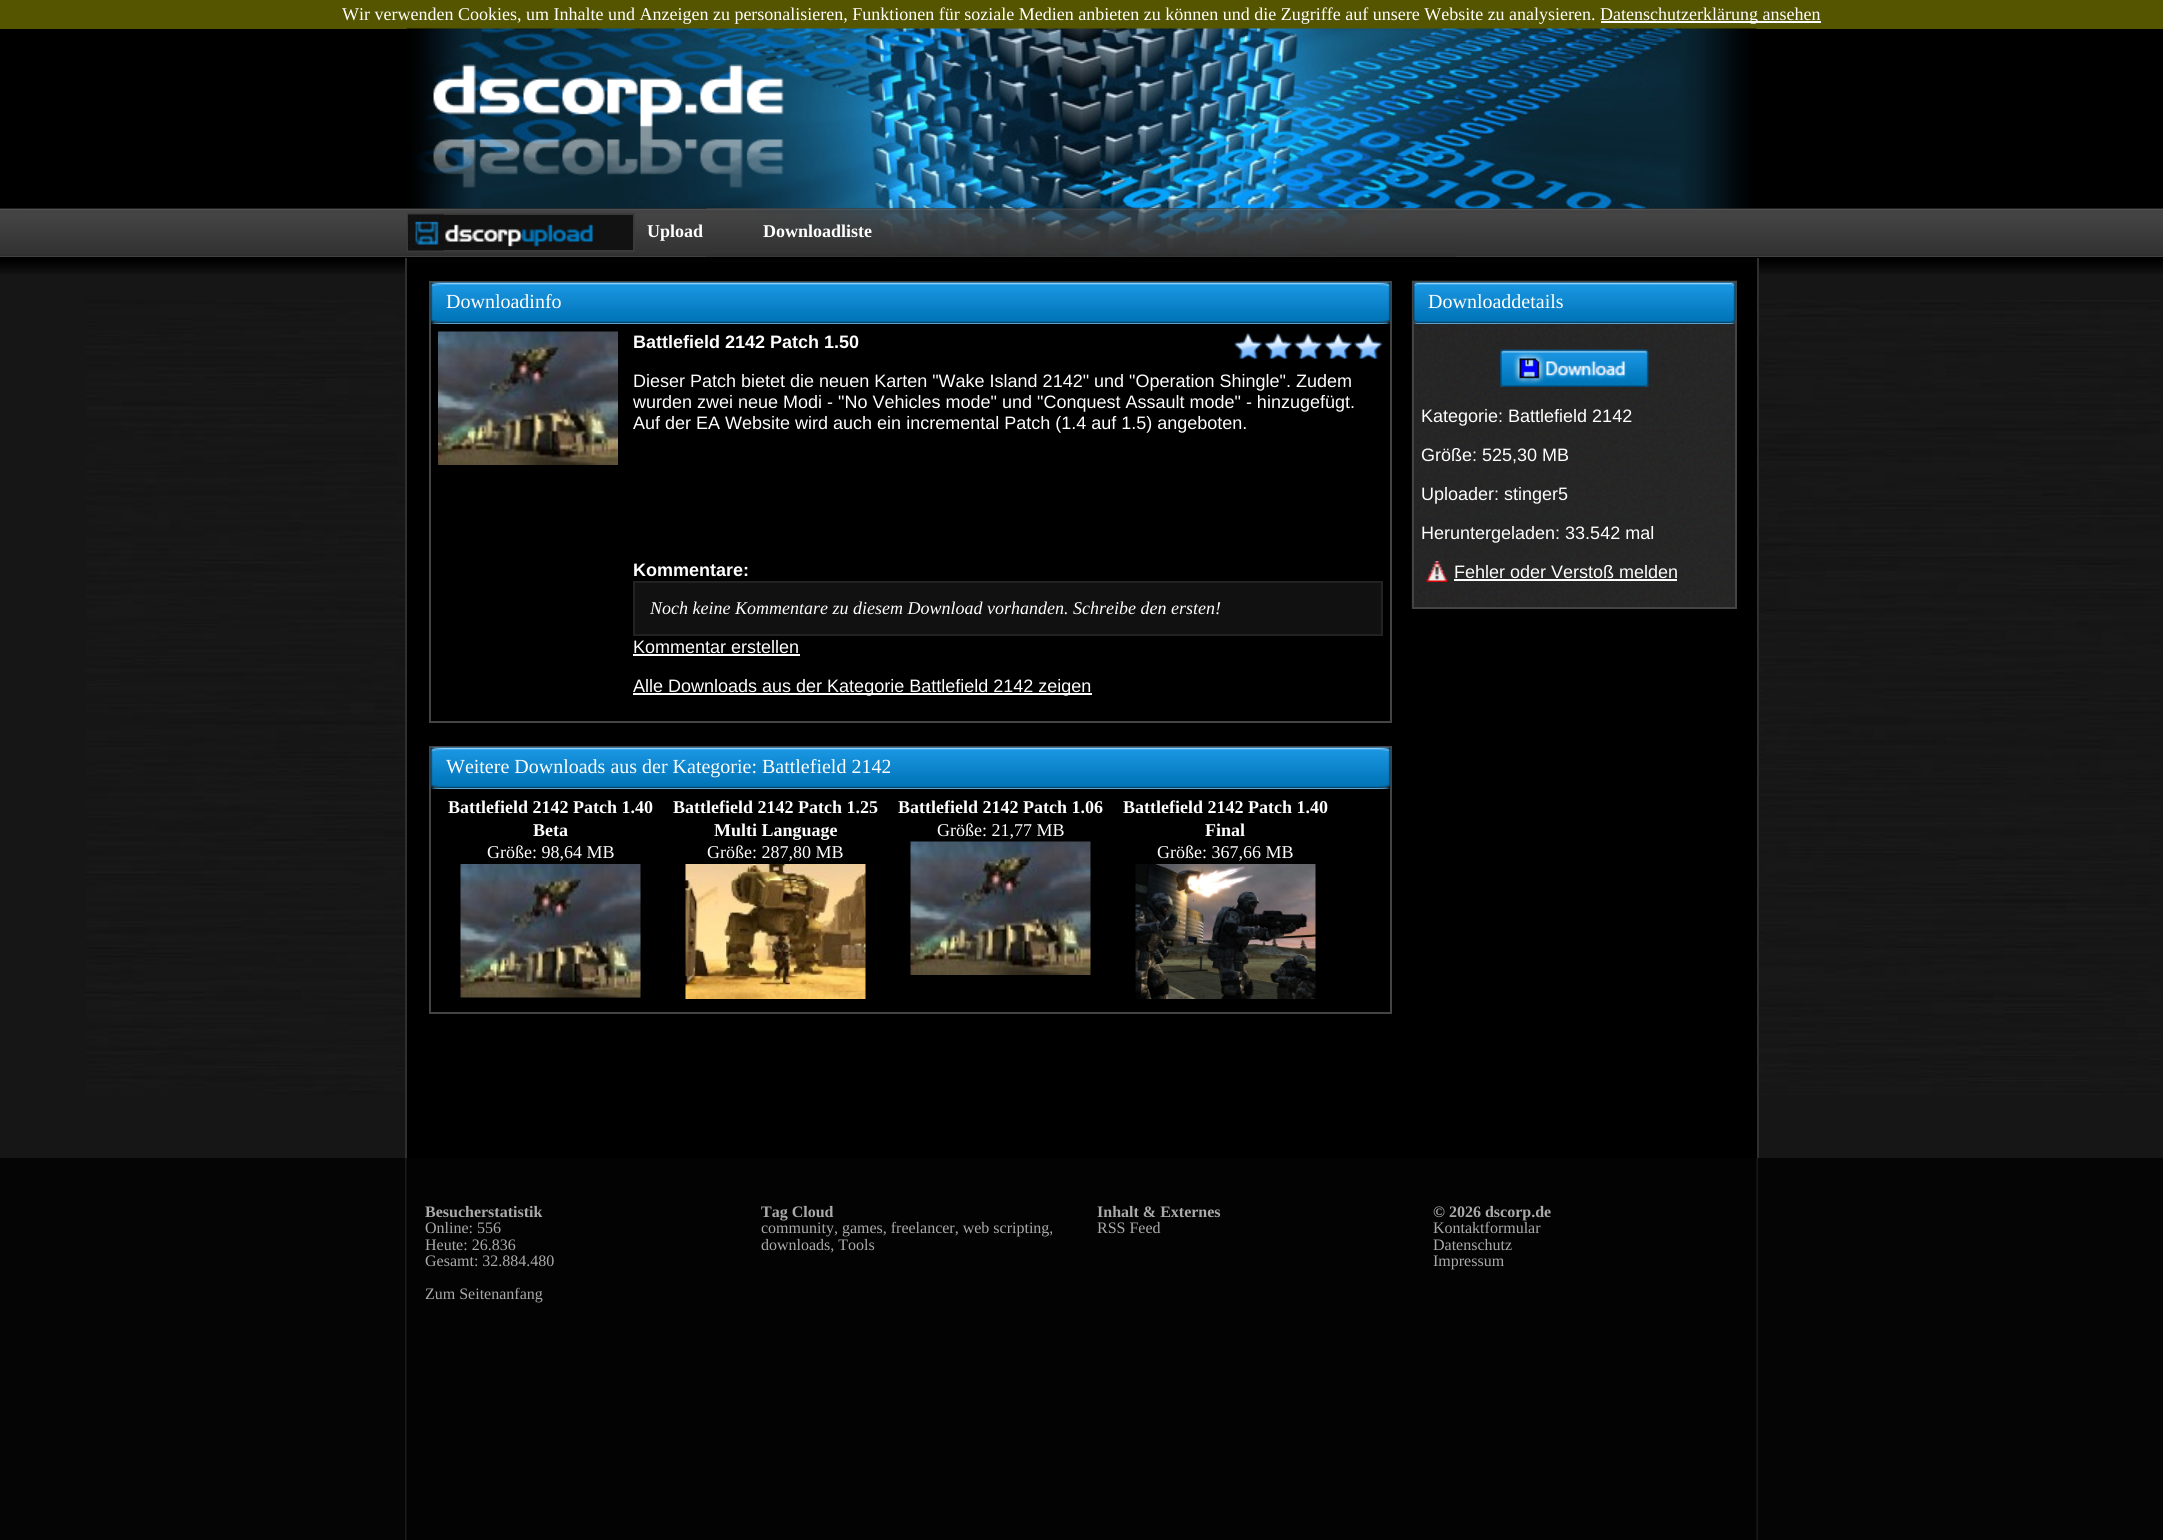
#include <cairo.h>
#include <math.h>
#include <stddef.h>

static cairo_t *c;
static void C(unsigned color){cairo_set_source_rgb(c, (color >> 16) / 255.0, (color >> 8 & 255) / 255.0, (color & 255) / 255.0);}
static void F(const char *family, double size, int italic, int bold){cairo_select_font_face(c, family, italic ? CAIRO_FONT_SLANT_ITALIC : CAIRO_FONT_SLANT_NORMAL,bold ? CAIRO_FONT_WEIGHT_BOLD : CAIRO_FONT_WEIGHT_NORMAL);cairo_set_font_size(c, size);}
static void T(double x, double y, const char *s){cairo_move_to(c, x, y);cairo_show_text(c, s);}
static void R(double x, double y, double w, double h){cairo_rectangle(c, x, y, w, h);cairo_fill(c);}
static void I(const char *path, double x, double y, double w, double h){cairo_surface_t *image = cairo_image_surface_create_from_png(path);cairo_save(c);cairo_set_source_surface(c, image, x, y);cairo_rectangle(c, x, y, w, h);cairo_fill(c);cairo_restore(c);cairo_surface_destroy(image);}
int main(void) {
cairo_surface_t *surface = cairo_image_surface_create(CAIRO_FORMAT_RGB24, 2163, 1540);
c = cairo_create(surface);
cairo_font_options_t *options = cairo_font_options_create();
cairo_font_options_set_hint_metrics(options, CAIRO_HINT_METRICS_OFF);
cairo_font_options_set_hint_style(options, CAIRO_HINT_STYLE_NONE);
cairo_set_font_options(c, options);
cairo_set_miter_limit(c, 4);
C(0x050505);
cairo_paint(c);
I("1.png",405,1353,1353,187);
I("2.png",405,1158,1353,195);
C(0x555500);
R(0,0,2163,29);
F("Liberation Serif",18,0,0);
C(0xffffff);
T(342,20,"Wir verwenden Cookies, um Inhalte und Anzeigen zu personalisieren, Funktionen für soziale Medien anbieten zu können und die Zugriffe auf unsere Website zu analysieren.");
R(1601,21,220,2);
T(1600,20,"Datenschutzerklärung ansehen");
C(0x000000);
R(0,29,2163,180);
I("3.png",406,28,1351,181);
I("4.png",433,64,351,124);
I("5.png",0,208,2163,49);
R(0,257,2163,1);
I("6.png",706,208,751,49);
C(0x121212);
R(444,215,189,35);
cairo_rectangle(c,408,214,226,37);
C(0x3a3a3a);
cairo_stroke(c);
I("7.png",408,214,36,37);
I("8.png",445,224,148,23);
F("Liberation Serif",18,0,1);
C(0xffffff);
T(647,237,"Upload");
T(763,237,"Downloadliste");
C(0x161616);
R(0,259,2163,899);
I("9.png",86,300,2075,795);
I("10.png",0,258,2163,16);
C(0x000000);
R(407,262,1350,896);
C(0x2f2f2f);
R(1757,258,2,900);
R(405,258,2,900);
cairo_rectangle(c,430,282,961,440);
C(0x444444);
cairo_stroke(c);
I("11.png",430,282,961,42);
F("Liberation Serif",20,0,0);
C(0xffffff);
T(446,308,"Downloadinfo");
I("12.png",438,331,180,134);
F("Liberation Sans",18,0,1);
T(633,348,"Battlefield 2142 Patch 1.50");
I("13.png",1234,332,149,27);
F("Liberation Sans",18,0,0);
T(633,387,"Dieser Patch bietet die neuen Karten \"Wake Island 2142\" und \"Operation Shingle\". Zudem");
T(633,408,"wurden zwei neue Modi - \"No Vehicles mode\" und \"Conquest Assault mode\" - hinzugefügt.");
T(633,429,"Auf der EA Website wird auch ein incremental Patch (1.4 auf 1.5) angeboten.");
F("Liberation Sans",18,0,1);
T(633,576,"Kommentare:");
C(0x111111);
cairo_rectangle(c,634,582,748,53);
cairo_fill_preserve(c);
C(0x222222);
cairo_stroke(c);
F("Liberation Serif",18,1,0);
C(0xffffff);
T(650,614,"Noch keine Kommentare zu diesem Download vorhanden. Schreibe den ersten!");
F("Liberation Sans",18,0,0);
T(633,653,"Kommentar erstellen");
R(633,654,167,2);
R(633,693,459,2);
T(633,692,"Alle Downloads aus der Kategorie Battlefield 2142 zeigen");
cairo_rectangle(c,430,747,961,266);
C(0x444444);
cairo_stroke(c);
I("14.png",430,747,961,42);
F("Liberation Serif",20,0,0);
C(0xffffff);
T(446,773,"Weitere Downloads aus der Kategorie: Battlefield 2142");
F("Liberation Serif",18,0,1);
T(448,813,"Battlefield 2142 Patch 1.40");
T(533,836,"Beta");
F("Liberation Serif",18,0,0);
T(487,858,"Größe: 98,64 MB");
I("15.png",460,864,181,134);
F("Liberation Serif",18,0,1);
T(673,813,"Battlefield 2142 Patch 1.25");
T(714,836,"Multi Language");
F("Liberation Serif",18,0,0);
T(707,858,"Größe: 287,80 MB");
I("16.png",685,864,181,135);
F("Liberation Serif",18,0,1);
T(898,813,"Battlefield 2142 Patch 1.06");
F("Liberation Serif",18,0,0);
T(937,836,"Größe: 21,77 MB");
I("17.png",910,841,181,134);
F("Liberation Serif",18,0,1);
T(1123,813,"Battlefield 2142 Patch 1.40");
T(1205,836,"Final");
F("Liberation Serif",18,0,0);
T(1157,858,"Größe: 367,66 MB");
I("18.png",1135,864,181,135);
I("19.png",1411,280,326,329);
cairo_rectangle(c,1413,282,323,326);
C(0x444444);
cairo_stroke(c);
I("20.png",1413,282,323,42);
F("Liberation Serif",20,0,0);
C(0xffffff);
T(1428,308,"Downloaddetails");
I("21.png",1500,349,149,38);
F("Liberation Sans",18,0,0);
T(1421,422,"Kategorie: Battlefield 2142");
T(1421,461,"Größe: 525,30 MB");
T(1421,500,"Uploader: stinger5");
T(1421,539,"Heruntergeladen: 33.542 mal");
I("22.png",1426,561,22,21);
T(1454,578,"Fehler oder Verstoß melden");
R(1454,579,223,2);
F("Liberation Serif",16,0,1);
C(0xaaaaaa);
T(425,1217,"Besucherstatistik");
F("Liberation Serif",16,0,0);
T(425,1233,"Online: 556");
T(425,1250,"Heute: 26.836");
T(425,1266,"Gesamt: 32.884.480");
T(425,1299,"Zum Seitenanfang");
F("Liberation Serif",16,0,1);
T(761,1217,"Tag Cloud");
F("Liberation Serif",16,0,0);
T(761,1233,"community, games, freelancer, web scripting,");
T(761,1250,"downloads, Tools");
F("Liberation Serif",16,0,1);
T(1097,1217,"Inhalt & Externes");
F("Liberation Serif",16,0,0);
T(1097,1233,"RSS Feed");
F("Liberation Serif",16,0,1);
T(1433,1217,"© 2026 dscorp.de");
F("Liberation Serif",16,0,0);
T(1433,1233,"Kontaktformular");
T(1433,1250,"Datenschutz");
T(1433,1266,"Impressum");
cairo_surface_write_to_png(surface, "o.png");
cairo_font_options_destroy(options);
cairo_destroy(c);
cairo_surface_destroy(surface);
return 0;
}
